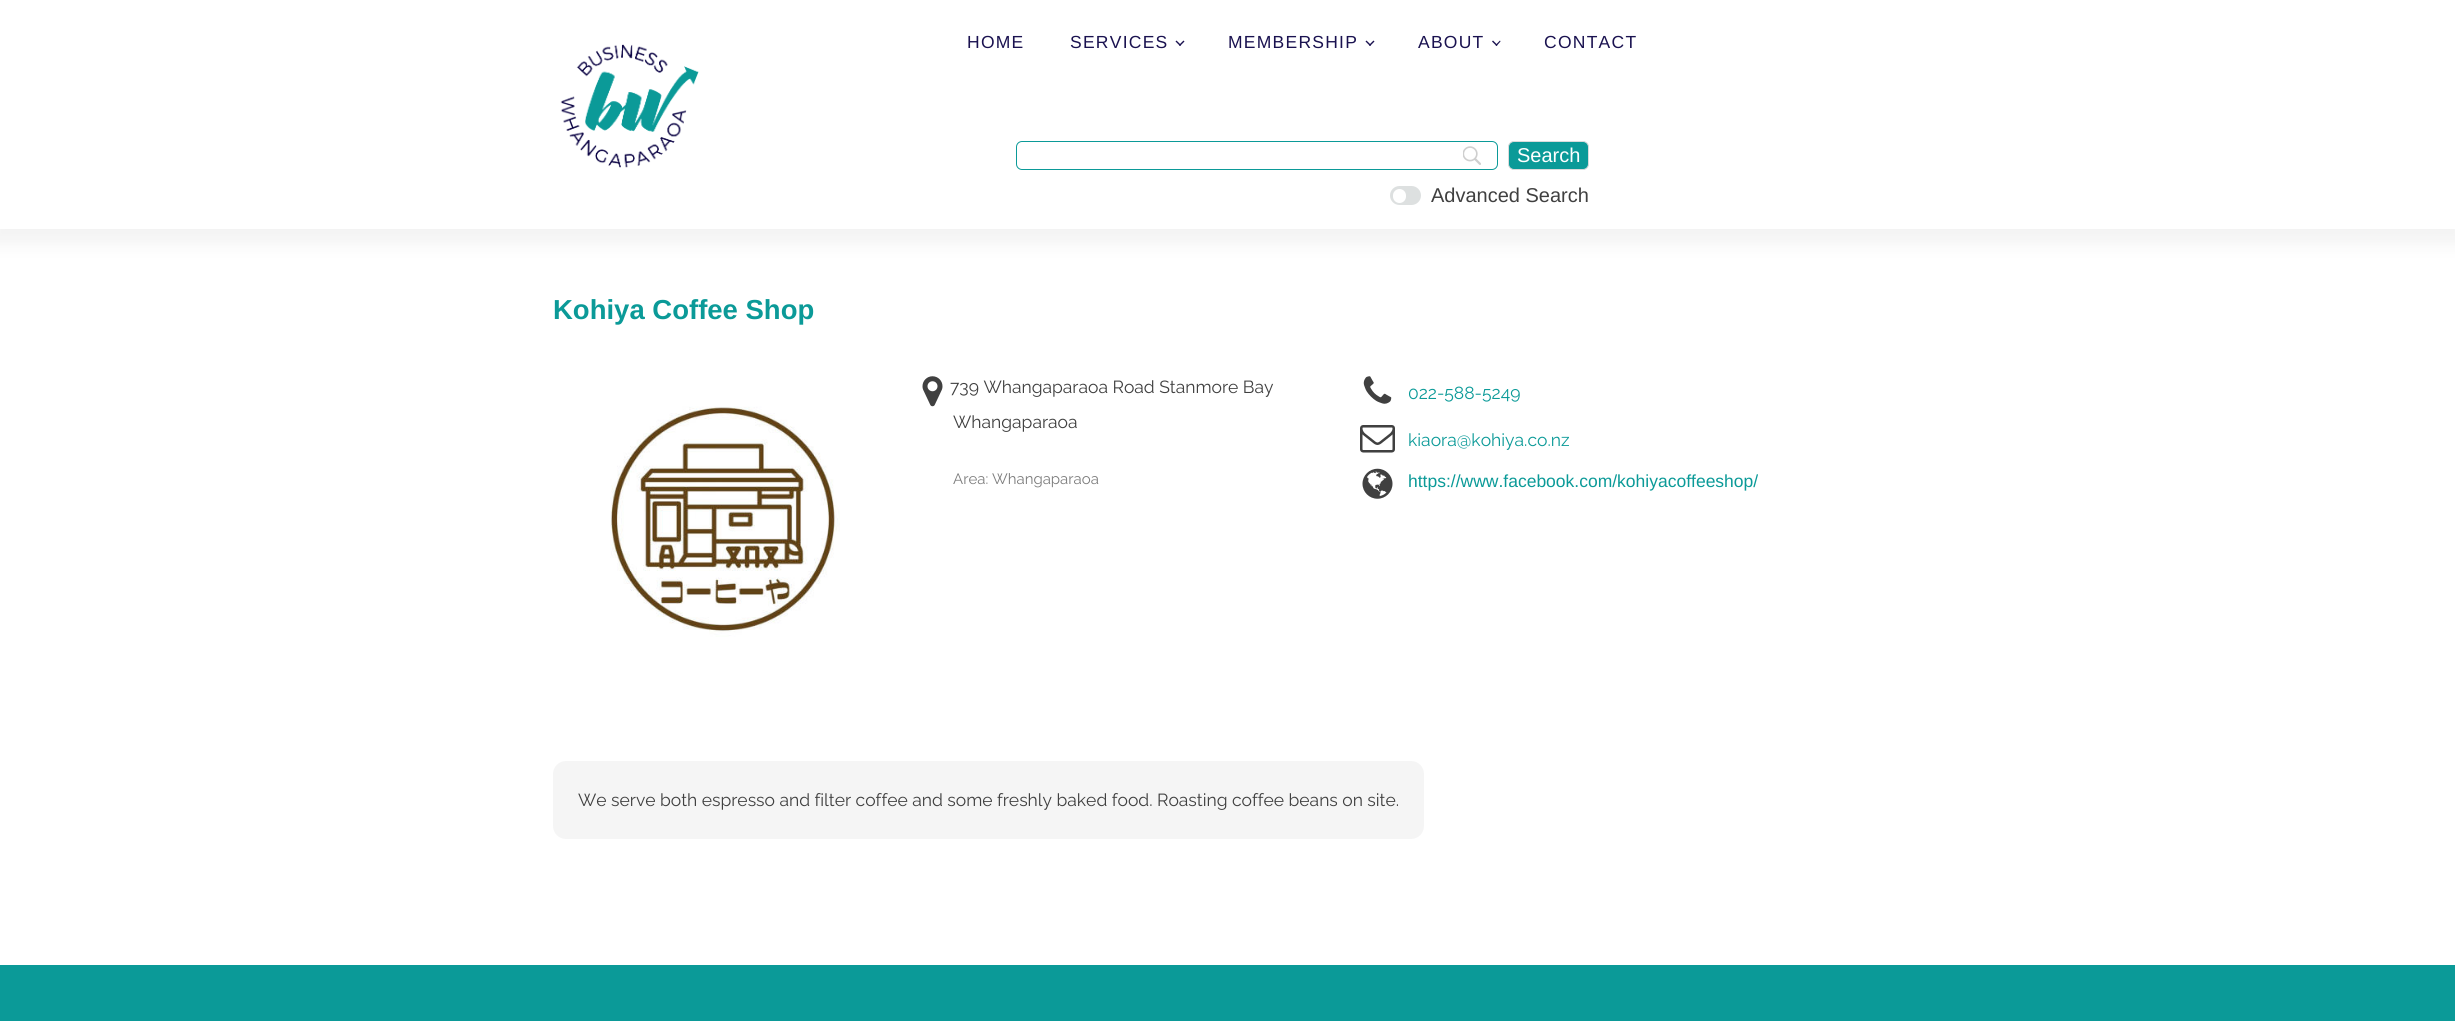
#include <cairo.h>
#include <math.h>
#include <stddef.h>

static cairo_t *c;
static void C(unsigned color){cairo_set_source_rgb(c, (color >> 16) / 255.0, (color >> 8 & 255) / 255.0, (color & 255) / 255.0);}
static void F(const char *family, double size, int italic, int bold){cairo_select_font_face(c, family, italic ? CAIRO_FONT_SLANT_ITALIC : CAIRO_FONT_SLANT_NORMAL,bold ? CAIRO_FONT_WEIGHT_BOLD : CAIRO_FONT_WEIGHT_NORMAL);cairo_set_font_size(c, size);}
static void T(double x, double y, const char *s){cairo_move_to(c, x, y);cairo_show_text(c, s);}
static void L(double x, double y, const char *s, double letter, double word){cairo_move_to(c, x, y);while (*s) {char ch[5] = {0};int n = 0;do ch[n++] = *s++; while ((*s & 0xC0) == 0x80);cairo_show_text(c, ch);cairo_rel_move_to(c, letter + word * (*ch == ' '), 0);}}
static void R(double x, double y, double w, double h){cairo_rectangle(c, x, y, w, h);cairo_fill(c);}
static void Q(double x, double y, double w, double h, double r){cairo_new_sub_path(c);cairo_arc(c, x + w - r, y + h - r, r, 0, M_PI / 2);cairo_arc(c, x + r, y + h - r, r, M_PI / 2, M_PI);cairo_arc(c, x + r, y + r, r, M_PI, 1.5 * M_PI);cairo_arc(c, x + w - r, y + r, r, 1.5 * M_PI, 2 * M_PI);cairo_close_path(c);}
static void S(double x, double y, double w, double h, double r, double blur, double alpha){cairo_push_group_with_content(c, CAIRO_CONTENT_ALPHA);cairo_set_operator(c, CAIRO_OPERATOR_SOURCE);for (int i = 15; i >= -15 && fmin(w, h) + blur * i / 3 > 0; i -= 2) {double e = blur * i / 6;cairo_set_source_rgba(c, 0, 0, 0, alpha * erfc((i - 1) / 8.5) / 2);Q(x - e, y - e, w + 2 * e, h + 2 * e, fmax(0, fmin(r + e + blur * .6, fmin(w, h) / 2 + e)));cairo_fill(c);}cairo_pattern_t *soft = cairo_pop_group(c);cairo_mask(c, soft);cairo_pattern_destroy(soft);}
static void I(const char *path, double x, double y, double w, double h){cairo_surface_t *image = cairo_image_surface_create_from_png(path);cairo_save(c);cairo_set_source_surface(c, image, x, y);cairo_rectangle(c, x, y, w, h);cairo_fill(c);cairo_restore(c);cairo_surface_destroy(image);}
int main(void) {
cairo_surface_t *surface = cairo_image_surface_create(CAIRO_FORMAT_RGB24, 2455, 1021);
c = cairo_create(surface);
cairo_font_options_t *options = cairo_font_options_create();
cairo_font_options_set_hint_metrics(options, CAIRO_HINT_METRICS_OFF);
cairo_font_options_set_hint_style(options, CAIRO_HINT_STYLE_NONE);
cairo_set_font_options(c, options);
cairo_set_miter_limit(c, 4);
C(0xffffff);
cairo_paint(c);
C(0x000000);
S(-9,-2,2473,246,0,9,.05);
C(0xffffff);
R(0,0,2455,229);
I("1.png",560,44,139,124);
F("Liberation Sans",17.5,0,0);
C(0x1a1250);
L(967,48,"HOME",1.25,0);
L(1070,48,"SERVICES",1.25,0);
cairo_new_path(c);
cairo_move_to(c,1184.5,41.5);
cairo_line_to(c,1180,46);
cairo_line_to(c,1179,45);
cairo_line_to(c,1183.5,40.5);
cairo_close_path(c);
cairo_fill(c);
cairo_new_path(c);
cairo_move_to(c,1181,45);
cairo_line_to(c,1180,46);
cairo_line_to(c,1175.5,41.5);
cairo_line_to(c,1176.5,40.5);
cairo_close_path(c);
cairo_fill(c);
L(1228,48,"MEMBERSHIP",1.25,0);
cairo_new_path(c);
cairo_move_to(c,1374.5,41.5);
cairo_line_to(c,1370,46);
cairo_line_to(c,1369,45);
cairo_line_to(c,1373.5,40.5);
cairo_close_path(c);
cairo_fill(c);
cairo_new_path(c);
cairo_move_to(c,1371,45);
cairo_line_to(c,1370,46);
cairo_line_to(c,1365.5,41.5);
cairo_line_to(c,1366.5,40.5);
cairo_close_path(c);
cairo_fill(c);
L(1418,48,"ABOUT",1.25,0);
cairo_new_path(c);
cairo_move_to(c,1500.5,41.5);
cairo_line_to(c,1496.5,46);
cairo_line_to(c,1495.5,45);
cairo_line_to(c,1500,40.5);
cairo_close_path(c);
cairo_fill(c);
cairo_new_path(c);
cairo_move_to(c,1497.5,45);
cairo_line_to(c,1496.5,46);
cairo_line_to(c,1492,41.5);
cairo_line_to(c,1493,40.5);
cairo_close_path(c);
cairo_fill(c);
L(1544,48,"CONTACT",1.25,0);
I("2.png",1463,146,18,19);
Q(1016.5,141.5,481,28,5.5);
C(0x0b9a98);
cairo_set_line_width(c,1);
cairo_stroke(c);
Q(1508.5,141.5,80,28,5.5);
cairo_fill_preserve(c);
C(0xdbdbdb);
cairo_stroke(c);
F("Liberation Sans",20,0,0);
C(0xffffff);
T(1517,162,"Search");
C(0xdde0e0);
Q(1390,186,31,19,9.5);
cairo_fill(c);
C(0xffffff);
Q(1393,189,13,14,6.5);
cairo_fill(c);
C(0x404040);
T(1431,202,"Advanced Search");
F("Liberation Sans",27.5,0,1);
C(0x0b9a98);
T(553,319,"Kohiya Coffee Shop");
I("3.png",610,406,230,231);
I("4.png",922,376,21,31);
F("Raleway",17.5,0,0);
C(0x404040);
T(950,393,"739 Whangaparaoa Road Stanmore Bay");
T(953,428,"Whangaparaoa");
F("Raleway",15,0,0);
C(0x7c7c7c);
T(953,484,"Area: Whangaparaoa");
I("5.png",1363,376,29,28);
F("Raleway",17.5,0,0);
C(0x0b9a98);
T(1408,399,"022-588-5249");
I("6.png",1360,425,35,28);
T(1408,446,"kiaora@kohiya.co.nz");
I("7.png",1362,468,31,31);
F("Liberation Sans",17.5,0,0);
T(1408,487,"https://www.facebook.com/kohiyacoffeeshop/");
C(0xf5f5f5);
Q(553,761,871,78,13);
cairo_fill(c);
F("Raleway",17.5,0,0);
C(0x404040);
T(578,806,"We serve both espresso and filter coffee and some freshly baked food. Roasting coffee beans on site.");
C(0x0b9a98);
R(0,965,2455,56);
cairo_surface_write_to_png(surface, "o.png");
cairo_font_options_destroy(options);
cairo_destroy(c);
cairo_surface_destroy(surface);
return 0;
}
